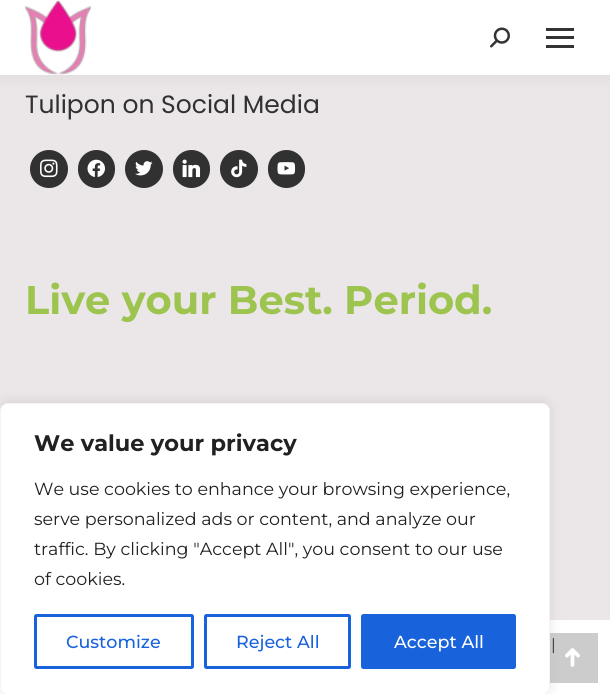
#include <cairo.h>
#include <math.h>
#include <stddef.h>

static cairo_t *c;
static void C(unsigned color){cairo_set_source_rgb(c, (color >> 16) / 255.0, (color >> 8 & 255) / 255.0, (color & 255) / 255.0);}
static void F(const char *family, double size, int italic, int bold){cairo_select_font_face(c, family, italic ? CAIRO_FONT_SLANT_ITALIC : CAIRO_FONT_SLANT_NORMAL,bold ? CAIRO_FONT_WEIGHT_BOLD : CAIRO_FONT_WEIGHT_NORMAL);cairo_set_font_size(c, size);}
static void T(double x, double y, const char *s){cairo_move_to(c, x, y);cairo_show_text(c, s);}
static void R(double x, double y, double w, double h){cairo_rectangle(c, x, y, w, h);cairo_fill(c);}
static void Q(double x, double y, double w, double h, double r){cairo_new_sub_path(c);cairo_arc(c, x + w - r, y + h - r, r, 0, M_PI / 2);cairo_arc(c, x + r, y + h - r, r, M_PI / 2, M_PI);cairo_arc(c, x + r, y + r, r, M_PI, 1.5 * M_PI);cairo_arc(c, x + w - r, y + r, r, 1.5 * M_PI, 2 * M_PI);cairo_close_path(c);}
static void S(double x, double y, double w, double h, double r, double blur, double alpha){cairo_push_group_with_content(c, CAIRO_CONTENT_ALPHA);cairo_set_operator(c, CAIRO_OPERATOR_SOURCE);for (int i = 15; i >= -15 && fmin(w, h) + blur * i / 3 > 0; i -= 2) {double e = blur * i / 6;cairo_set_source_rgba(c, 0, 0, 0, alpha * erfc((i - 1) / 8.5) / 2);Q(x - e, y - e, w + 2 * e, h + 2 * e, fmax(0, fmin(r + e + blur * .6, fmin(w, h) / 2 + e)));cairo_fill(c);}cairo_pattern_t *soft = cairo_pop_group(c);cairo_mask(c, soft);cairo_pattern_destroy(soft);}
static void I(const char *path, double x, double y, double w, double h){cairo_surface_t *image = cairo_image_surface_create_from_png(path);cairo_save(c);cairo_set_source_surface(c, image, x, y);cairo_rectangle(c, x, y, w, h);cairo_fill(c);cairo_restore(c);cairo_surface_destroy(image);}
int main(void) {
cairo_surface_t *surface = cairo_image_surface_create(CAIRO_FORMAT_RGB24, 610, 694);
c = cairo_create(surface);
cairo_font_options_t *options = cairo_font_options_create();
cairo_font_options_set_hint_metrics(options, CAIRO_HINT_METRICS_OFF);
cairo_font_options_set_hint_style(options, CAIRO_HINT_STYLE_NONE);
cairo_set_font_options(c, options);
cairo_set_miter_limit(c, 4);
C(0xebe6e8);
cairo_paint(c);
C(0x000000);
S(-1,-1,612,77,0,9.5,.07);
C(0xffffff);
R(0,0,610,75);
I("1.png",25,0,66,75);
I("2.png",490,27,20,21);
C(0x333333);
R(546,28,28,3);
R(546,36,28,3);
R(546,45,28,3);
F("Poppins",25,0,0);
C(0x313131);
T(25,113,"Tulipon on Social Media");
cairo_new_path(c);
cairo_arc(c,49,169,19,0,2 * M_PI);
cairo_fill(c);
I("3.png",40,159,18,19);
Q(78,150,37,38,18.5);
cairo_fill(c);
I("4.png",87,159,18,18);
cairo_arc(c,144,169,19,0,2 * M_PI);
cairo_fill(c);
I("5.png",135,161,18,15);
Q(173,150,37,38,18.5);
cairo_fill(c);
I("6.png",182,159,19,19);
cairo_arc(c,239,169,19,0,2 * M_PI);
cairo_fill(c);
I("7.png",231,159,16,19);
Q(268,150,37,38,18.5);
cairo_fill(c);
I("8.png",277,162,19,13);
F("Montserrat Thin",40,0,0);
C(0x9dc44f);
T(25,314,"Live your Best. Period.");
C(0xffffff);
R(0,620,610,74);
C(0xcccccc);
R(550,633,48,50);
F("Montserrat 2 Thin",16,0,0);
C(0x272727);
T(551,650,"|");
I("9.png",565,648,15,19);
C(0xacabab);
S(0,401,550,293,8,6,.3);
C(0xffffff);
Q(.5,403.5,549,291,7.5);
cairo_fill_preserve(c);
C(0xf4f4f4);
cairo_set_line_width(c,1);
cairo_stroke(c);
F("Montserrat Thin",22.5,0,0);
C(0x212121);
T(34,451,"We value your privacy");
F("Montserrat 2 Thin",17.5,0,0);
T(34,495,"We use cookies to enhance your browsing experience,");
T(34,525,"serve personalized ads or content, and analyze our");
T(34,555,"traffic. By clicking \"Accept All\", you consent to our use");
T(34,585,"of cookies.");
Q(35.5,615.5,157,52,1);
C(0x1863dc);
cairo_set_line_width(c,3);
cairo_stroke(c);
F("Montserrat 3 Thin",17.5,0,0);
T(66,648,"Customize");
Q(205.5,615.5,144,52,1);
cairo_stroke(c);
T(236,648,"Reject All");
Q(362.5,615.5,152,52,1);
cairo_fill_preserve(c);
cairo_stroke(c);
C(0xffffff);
T(394,648,"Accept All");
cairo_surface_write_to_png(surface, "o.png");
cairo_font_options_destroy(options);
cairo_destroy(c);
cairo_surface_destroy(surface);
return 0;
}
